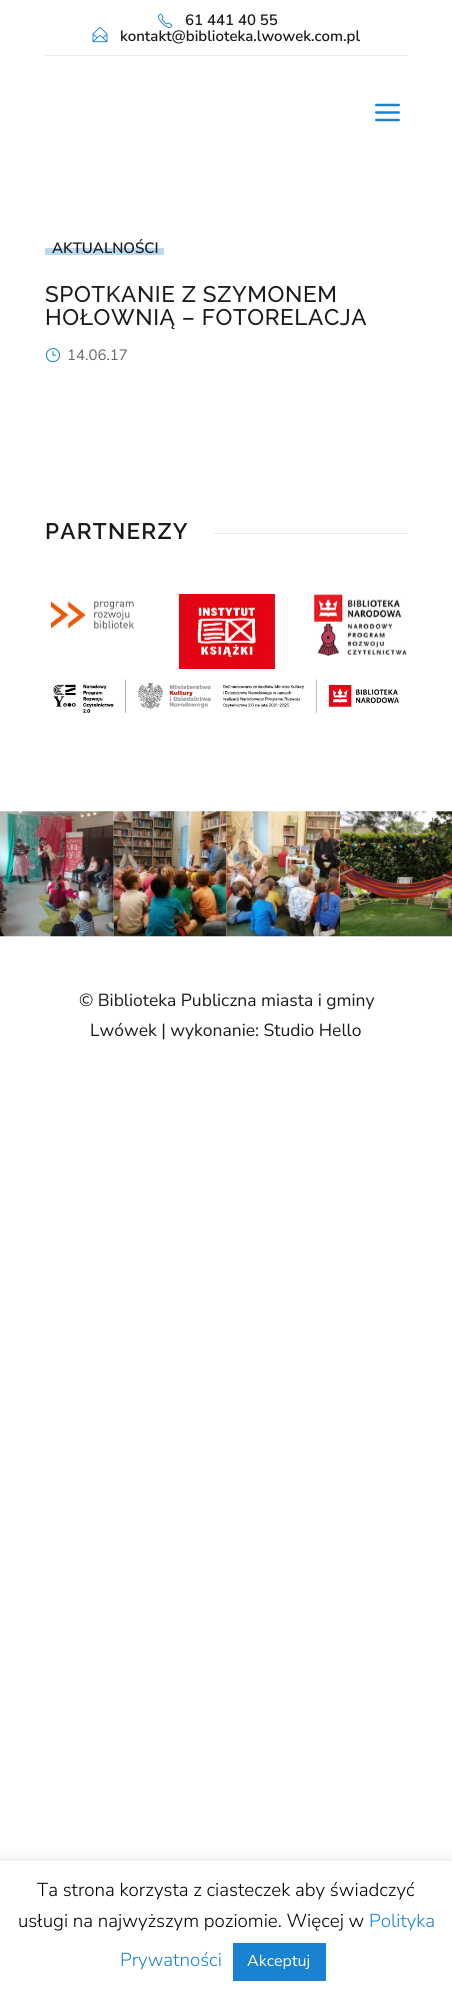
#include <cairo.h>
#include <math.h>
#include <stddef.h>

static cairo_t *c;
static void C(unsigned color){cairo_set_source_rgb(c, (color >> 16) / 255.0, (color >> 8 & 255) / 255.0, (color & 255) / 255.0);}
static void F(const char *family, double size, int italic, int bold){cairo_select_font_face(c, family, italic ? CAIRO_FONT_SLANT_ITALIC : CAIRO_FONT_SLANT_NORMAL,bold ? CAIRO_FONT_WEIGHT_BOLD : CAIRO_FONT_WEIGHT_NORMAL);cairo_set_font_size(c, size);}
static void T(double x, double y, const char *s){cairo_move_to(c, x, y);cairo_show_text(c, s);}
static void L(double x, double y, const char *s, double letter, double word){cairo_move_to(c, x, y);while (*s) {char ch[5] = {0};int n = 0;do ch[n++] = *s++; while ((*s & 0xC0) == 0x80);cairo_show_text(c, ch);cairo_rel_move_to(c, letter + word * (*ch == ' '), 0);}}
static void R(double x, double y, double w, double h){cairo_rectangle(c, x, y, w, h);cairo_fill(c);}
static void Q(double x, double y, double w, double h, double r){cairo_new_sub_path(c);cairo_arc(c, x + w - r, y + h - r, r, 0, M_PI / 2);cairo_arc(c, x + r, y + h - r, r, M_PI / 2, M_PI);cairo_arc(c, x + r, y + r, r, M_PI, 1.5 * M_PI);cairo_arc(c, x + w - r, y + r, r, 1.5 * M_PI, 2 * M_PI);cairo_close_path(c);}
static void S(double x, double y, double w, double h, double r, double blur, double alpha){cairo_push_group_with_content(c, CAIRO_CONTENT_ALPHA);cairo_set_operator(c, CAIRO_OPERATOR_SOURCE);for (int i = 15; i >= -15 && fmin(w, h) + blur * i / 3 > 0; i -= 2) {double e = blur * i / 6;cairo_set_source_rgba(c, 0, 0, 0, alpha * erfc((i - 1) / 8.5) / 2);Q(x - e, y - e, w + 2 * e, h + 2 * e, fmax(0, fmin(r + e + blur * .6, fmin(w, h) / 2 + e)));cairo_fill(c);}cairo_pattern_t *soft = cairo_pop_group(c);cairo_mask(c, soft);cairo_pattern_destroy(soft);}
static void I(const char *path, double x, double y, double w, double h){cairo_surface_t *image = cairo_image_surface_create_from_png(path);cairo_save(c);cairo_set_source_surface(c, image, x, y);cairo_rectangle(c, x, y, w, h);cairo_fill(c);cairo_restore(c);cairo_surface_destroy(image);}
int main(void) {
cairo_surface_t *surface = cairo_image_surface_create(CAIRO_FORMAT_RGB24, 452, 2002);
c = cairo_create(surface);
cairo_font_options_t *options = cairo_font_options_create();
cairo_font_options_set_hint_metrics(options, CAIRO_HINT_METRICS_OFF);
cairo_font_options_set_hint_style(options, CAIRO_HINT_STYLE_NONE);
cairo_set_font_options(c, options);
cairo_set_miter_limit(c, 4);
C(0xffffff);
cairo_paint(c);
C(0xebebeb);
R(45,55,363,1);
I("1.png",157,13,16,16);
F("Nunito Sans SemiBold",15,0,0);
C(0x1b1b1b);
T(185,25,"61 441 40 55");
I("2.png",92,27,16,16);
T(120,41,"kontakt@biblioteka.lwowek.com.pl");
I("3.png",375,103,25,19);
C(0xbad9f1);
R(45,248,119,7);
C(0x1b1b1b);
T(52,253,"AKTUALNOŚCI");
F("Raleway Medium",22.5,0,0);
L(45,302,"SPOTKANIE Z SZYMONEM",.6,0);
L(45,325,"HOŁOWNIĄ – FOTORELACJA",.6,0);
I("4.png",45,348,15,15);
F("Nunito Sans",15,0,0);
C(0x666666);
T(67,360,"14.06.17");
F("Raleway SemiBold",22.5,0,0);
C(0x1b1b1b);
L(45,539,"PARTNERZY",1.25,0);
C(0xebebeb);
R(214,533,194,1);
I("5.png",49,600,85,30);
I("6.png",178,594,97,75);
I("7.png",313,594,94,62);
I("8.png",53,679,346,34);
I("9.png",0,811,114,126);
I("10.png",113,811,114,126);
I("11.png",226,811,114,126);
I("12.png",340,811,112,126);
F("Nunito Sans",17.5,0,0);
C(0x1b1b1b);
T(79,1006,"© Biblioteka Publiczna miasta i gminy");
T(90,1036,"Lwówek | wykonanie: Studio Hello");
C(0xacabab);
S(0,1860,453,141,0,6,.3);
C(0xffffff);
R(0,1861,452,141);
F("Nunito Sans Light",18.75,0,0);
C(0x000000);
T(37,1896,"Ta strona korzysta z ciasteczek aby świadczyć");
T(18,1927,"usługi na najwyższym poziomie. Więcej w");
C(0x1982d1);
T(369,1927,"Polityka");
T(120,1966,"Prywatności");
R(233,1943,93,38);
F("Nunito Sans",16,0,0);
C(0xffffff);
T(247,1966,"Akceptuj");
cairo_surface_write_to_png(surface, "o.png");
cairo_font_options_destroy(options);
cairo_destroy(c);
cairo_surface_destroy(surface);
return 0;
}
